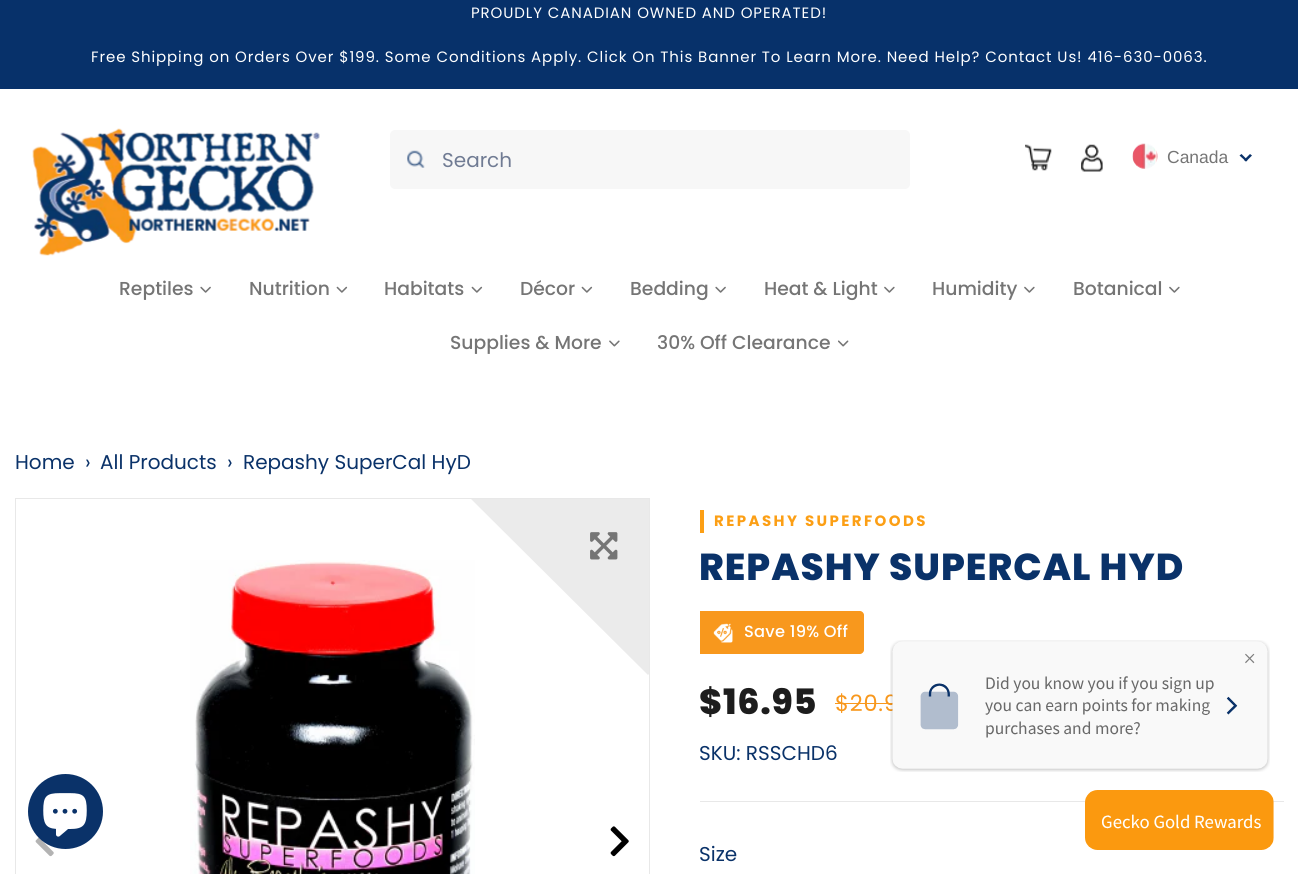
#include <cairo.h>
#include <math.h>
#include <stddef.h>

static cairo_t *c;
static void C(unsigned color){cairo_set_source_rgb(c, (color >> 16) / 255.0, (color >> 8 & 255) / 255.0, (color & 255) / 255.0);}
static void F(const char *family, double size, int italic, int bold){cairo_select_font_face(c, family, italic ? CAIRO_FONT_SLANT_ITALIC : CAIRO_FONT_SLANT_NORMAL,bold ? CAIRO_FONT_WEIGHT_BOLD : CAIRO_FONT_WEIGHT_NORMAL);cairo_set_font_size(c, size);}
static void T(double x, double y, const char *s){cairo_move_to(c, x, y);cairo_show_text(c, s);}
static void L(double x, double y, const char *s, double letter, double word){cairo_move_to(c, x, y);while (*s) {char ch[5] = {0};int n = 0;do ch[n++] = *s++; while ((*s & 0xC0) == 0x80);cairo_show_text(c, ch);cairo_rel_move_to(c, letter + word * (*ch == ' '), 0);}}
static void R(double x, double y, double w, double h){cairo_rectangle(c, x, y, w, h);cairo_fill(c);}
static void Q(double x, double y, double w, double h, double r){cairo_new_sub_path(c);cairo_arc(c, x + w - r, y + h - r, r, 0, M_PI / 2);cairo_arc(c, x + r, y + h - r, r, M_PI / 2, M_PI);cairo_arc(c, x + r, y + r, r, M_PI, 1.5 * M_PI);cairo_arc(c, x + w - r, y + r, r, 1.5 * M_PI, 2 * M_PI);cairo_close_path(c);}
static void I(const char *path, double x, double y, double w, double h){cairo_surface_t *image = cairo_image_surface_create_from_png(path);cairo_save(c);cairo_set_source_surface(c, image, x, y);cairo_rectangle(c, x, y, w, h);cairo_fill(c);cairo_restore(c);cairo_surface_destroy(image);}
int main(void) {
cairo_surface_t *surface = cairo_image_surface_create(CAIRO_FORMAT_RGB24, 1298, 874);
c = cairo_create(surface);
cairo_font_options_t *options = cairo_font_options_create();
cairo_font_options_set_hint_metrics(options, CAIRO_HINT_METRICS_OFF);
cairo_font_options_set_hint_style(options, CAIRO_HINT_STYLE_NONE);
cairo_set_font_options(c, options);
cairo_set_miter_limit(c, 4);
C(0xffffff);
cairo_paint(c);
C(0x07316a);
R(0,0,1298,89);
F("Poppins",15,0,0);
C(0xffffff);
L(471,18,"PROUDLY CANADIAN OWNED AND OPERATED!",.9,0);
L(91,62,"Free Shipping on Orders Over $199. Some Conditions Apply. Click On This Banner To Learn More. Need Help? Contact Us! 416-630-0063.",.9,0);
I("1.png",32,128,288,128);
C(0xf7f7f7);
Q(390,130,520,59,5);
cairo_fill(c);
I("2.png",407,150,18,18);
F("Poppins",20,0,0);
C(0x707b93);
T(442,167,"Search");
I("3.png",1025,144,27,27);
I("4.png",1081,144,22,28);
I("5.png",1132,143,26,26);
F("Liberation Sans",17.5,0,0);
C(0x757575);
T(1167,163,"Canada");
C(0x0a3269);
cairo_new_path(c);
cairo_move_to(c,1250,154);
cairo_line_to(c,1252,155.5);
cairo_line_to(c,1246,161.5);
cairo_line_to(c,1244,160);
cairo_close_path(c);
cairo_fill(c);
cairo_new_path(c);
cairo_move_to(c,1241.5,154);
cairo_line_to(c,1247.5,160);
cairo_line_to(c,1246,161.5);
cairo_line_to(c,1239.5,155.5);
cairo_close_path(c);
cairo_fill(c);
F("Poppins Medium",18.75,0,0);
C(0x757575);
T(119,295,"Reptiles");
I("6.png",200,286,11,7);
T(249,295,"Nutrition");
I("7.png",336,286,12,7);
T(384,295,"Habitats");
I("7.png",471,286,12,7);
T(520,295,"Décor");
I("7.png",581,286,12,7);
T(630,295,"Bedding");
I("6.png",715,286,11,7);
T(764,295,"Heat & Light");
I("8.png",884,286,11,7);
T(932,295,"Humidity");
I("8.png",1024,286,11,7);
T(1073,295,"Botanical");
I("8.png",1169,286,11,7);
T(450,349,"Supplies & More");
I("9.png",609,340,11,7);
T(657,349,"30% Off Clearance");
I("10.png",838,340,11,7);
F("Poppins",20,0,0);
C(0x0a3269);
T(15,469,"Home");
T(85,469,"›");
T(100,469,"All Products");
T(227,469,"›");
T(243,469,"Repashy SuperCal HyD");
cairo_rectangle(c,15.5,498.5,634,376);
C(0xe8e8e8);
cairo_set_line_width(c,1);
cairo_stroke(c);
I("11.png",590,532,28,28);
I("13.png",190,560,285,314);
cairo_save(c);
cairo_rectangle(c,16,499,633,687);
cairo_clip(c);
cairo_set_source_rgba(c,0,0,0,0.08);
cairo_new_path(c);
cairo_move_to(c,648,322);
cairo_line_to(c,825,499);
cairo_line_to(c,648,675);
cairo_line_to(c,471,499);
cairo_close_path(c);
cairo_fill(c);
cairo_restore(c);
I("12.png",35,837,19,20);
I("14.png",610,826,19,31);
C(0xfc9f15);
R(700,510,4,23);
F("Poppins",15,0,1);
L(714,526,"REPASHY SUPERFOODS",2.4,0);
F("Poppins ExtraBold",37.5,0,0);
C(0x0a3269);
L(699,580,"REPASHY SUPERCAL HYD",1,0);
C(0xf8981d);
cairo_new_path(c);
cairo_move_to(c,700,611);
cairo_line_to(c,860,611);
cairo_curve_to(c,862,611,864,613,864,615);
cairo_line_to(c,864,650);
cairo_curve_to(c,864,652,862,654,860,654);
cairo_line_to(c,700,654);
cairo_close_path(c);
cairo_fill(c);
I("15.png",713,623,20,20);
F("Poppins Medium",16.25,0,0);
C(0xffffff);
L(744,637,"Save 19% Off",.25,0);
F("Poppins ExtraBold",35,0,0);
C(0x1d1d1d);
L(699,714,"$16.95",.75,0);
F("Poppins",22.5,0,0);
C(0xf8981d);
L(835,711,"$20.9",.75,0);
R(835,703,58,1);
F("Poppins",20,0,0);
C(0x0a3269);
T(699,760,"SKU: RSSCHD6");
C(0xe8e8e8);
R(700,801,584,1);
C(0x0a3269);
T(699,861,"Size");
I("16.png",890,640,380,132);
cairo_arc(c,65.5,811.5,37.5,0,2 * M_PI);
cairo_fill(c);
I("17.png",43,793,44,44);
I("18.png",1085,790,189,60);
cairo_surface_write_to_png(surface, "o.png");
cairo_font_options_destroy(options);
cairo_destroy(c);
cairo_surface_destroy(surface);
return 0;
}
